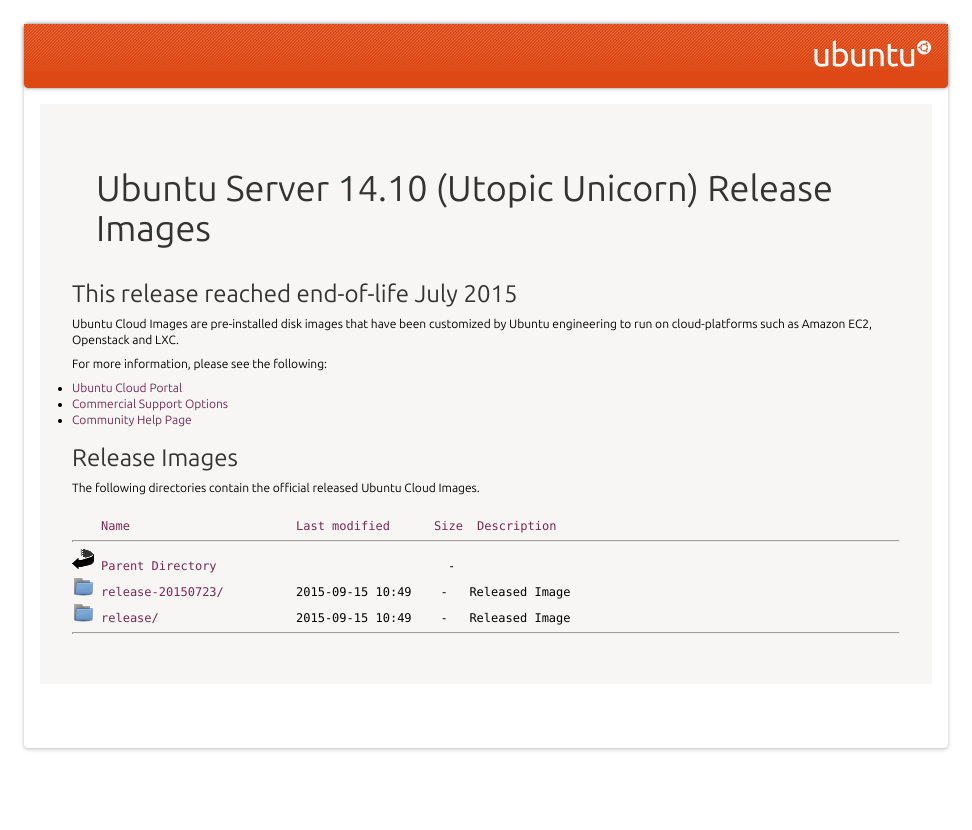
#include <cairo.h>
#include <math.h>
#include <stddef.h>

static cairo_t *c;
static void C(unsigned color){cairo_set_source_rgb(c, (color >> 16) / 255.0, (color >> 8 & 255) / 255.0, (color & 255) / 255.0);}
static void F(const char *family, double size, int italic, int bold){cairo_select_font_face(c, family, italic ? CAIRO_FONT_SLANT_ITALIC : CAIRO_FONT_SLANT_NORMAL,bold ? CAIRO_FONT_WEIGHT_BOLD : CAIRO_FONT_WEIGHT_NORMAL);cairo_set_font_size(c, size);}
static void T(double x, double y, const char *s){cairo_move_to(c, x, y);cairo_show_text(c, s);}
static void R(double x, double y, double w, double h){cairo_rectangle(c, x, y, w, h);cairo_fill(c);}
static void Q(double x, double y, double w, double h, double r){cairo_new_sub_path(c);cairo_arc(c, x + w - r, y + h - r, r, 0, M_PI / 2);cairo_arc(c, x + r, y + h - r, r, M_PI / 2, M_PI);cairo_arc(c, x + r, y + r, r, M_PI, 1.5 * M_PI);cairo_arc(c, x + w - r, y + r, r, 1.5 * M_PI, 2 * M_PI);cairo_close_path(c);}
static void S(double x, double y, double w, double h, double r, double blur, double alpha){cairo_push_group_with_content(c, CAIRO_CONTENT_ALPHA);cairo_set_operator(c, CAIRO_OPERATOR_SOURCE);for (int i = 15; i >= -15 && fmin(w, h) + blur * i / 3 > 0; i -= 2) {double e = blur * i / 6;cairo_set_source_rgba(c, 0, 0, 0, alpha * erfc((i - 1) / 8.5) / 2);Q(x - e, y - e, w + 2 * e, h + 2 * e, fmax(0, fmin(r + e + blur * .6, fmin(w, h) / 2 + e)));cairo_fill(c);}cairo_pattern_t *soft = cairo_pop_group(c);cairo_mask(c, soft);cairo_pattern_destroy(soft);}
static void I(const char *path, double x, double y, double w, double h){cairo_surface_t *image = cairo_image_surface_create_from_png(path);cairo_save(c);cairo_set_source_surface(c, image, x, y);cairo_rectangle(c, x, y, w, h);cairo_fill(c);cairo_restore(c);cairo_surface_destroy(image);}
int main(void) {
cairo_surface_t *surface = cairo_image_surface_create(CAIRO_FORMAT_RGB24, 972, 830);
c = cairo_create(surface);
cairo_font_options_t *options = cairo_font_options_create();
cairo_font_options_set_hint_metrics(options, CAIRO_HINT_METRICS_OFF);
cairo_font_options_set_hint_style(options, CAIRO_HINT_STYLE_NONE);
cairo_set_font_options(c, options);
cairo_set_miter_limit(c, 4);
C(0xffffff);
cairo_paint(c);
C(0xbbbbbb);
S(24,25,924,724,4,2,1);
C(0xffffff);
Q(24,24,924,724,4);
cairo_fill(c);
C(0x888888);
S(24,24,924,64,4,2,1);
C(0xdd4814);
cairo_new_path(c);
cairo_move_to(c,24,24);
cairo_line_to(c,948,24);
cairo_line_to(c,948,84);
cairo_curve_to(c,948,86,946,88,944,88);
cairo_line_to(c,28,88);
cairo_curve_to(c,26,88,24,86,24,84);
cairo_close_path(c);
cairo_fill(c);
I("1.png",24,24,924,47);
I("2.png",814,40,117,27);
C(0xf7f6f5);
R(40,104,892,580);
F("Ubuntu",36,0,0);
C(0x333333);
T(96,201,"Ubuntu Server 14.10 (Utopic Unicorn) Release");
T(96,241,"Images");
F("Ubuntu",24,0,0);
T(72,302,"This release reached end-of-life July 2015");
F("Ubuntu",12,0,0);
C(0x000000);
T(72,328,"Ubuntu Cloud Images are pre-installed disk images that have been customized by Ubuntu engineering to run on cloud-platforms such as Amazon EC2,");
T(72,344,"Openstack and LXC.");
T(72,368,"For more information, please see the following:");
cairo_new_path(c);
cairo_arc(c,60,389,2,0,2 * M_PI);
cairo_fill(c);
C(0x772953);
T(72,392,"Ubuntu Cloud Portal");
C(0x000000);
cairo_new_path(c);
cairo_arc(c,60,405,2,0,2 * M_PI);
cairo_fill(c);
C(0x772953);
T(72,408,"Commercial Support Options");
C(0x000000);
cairo_new_path(c);
cairo_arc(c,60,421,2,0,2 * M_PI);
cairo_fill(c);
C(0x772953);
T(72,424,"Community Help Page");
F("Ubuntu",24,0,0);
C(0x333333);
T(72,466,"Release Images");
F("Ubuntu",12,0,0);
C(0x000000);
T(72,492,"The following directories contain the official released Ubuntu Cloud Images.");
F("DejaVu Sans Mono",12,0,0);
C(0x772953);
T(101,530,"Name");
T(296,530,"Last modified");
T(434,530,"Size");
T(477,530,"Description");
C(0x9f9f9f);
R(72,540,828,1);
C(0xeeeeee);
R(899,540,1,2);
R(72,541,828,1);
C(0x9f9f9f);
R(72,540,1,2);
I("3.png",72,549,22,20);
C(0x772953);
T(101,570,"Parent Directory");
C(0x000000);
T(448,570,"-");
I("4.png",73,578,21,18);
C(0x772953);
T(101,596,"release-20150723/");
C(0x000000);
T(296,596,"2015-09-15 10:49    -   Released Image");
I("4.png",73,604,21,18);
C(0x772953);
T(101,622,"release/");
C(0x000000);
T(296,622,"2015-09-15 10:49    -   Released Image");
C(0x9f9f9f);
R(72,632,828,1);
C(0xeeeeee);
R(899,632,1,2);
R(72,633,828,1);
C(0x9f9f9f);
R(72,632,1,2);
cairo_surface_write_to_png(surface, "o.png");
cairo_font_options_destroy(options);
cairo_destroy(c);
cairo_surface_destroy(surface);
return 0;
}
